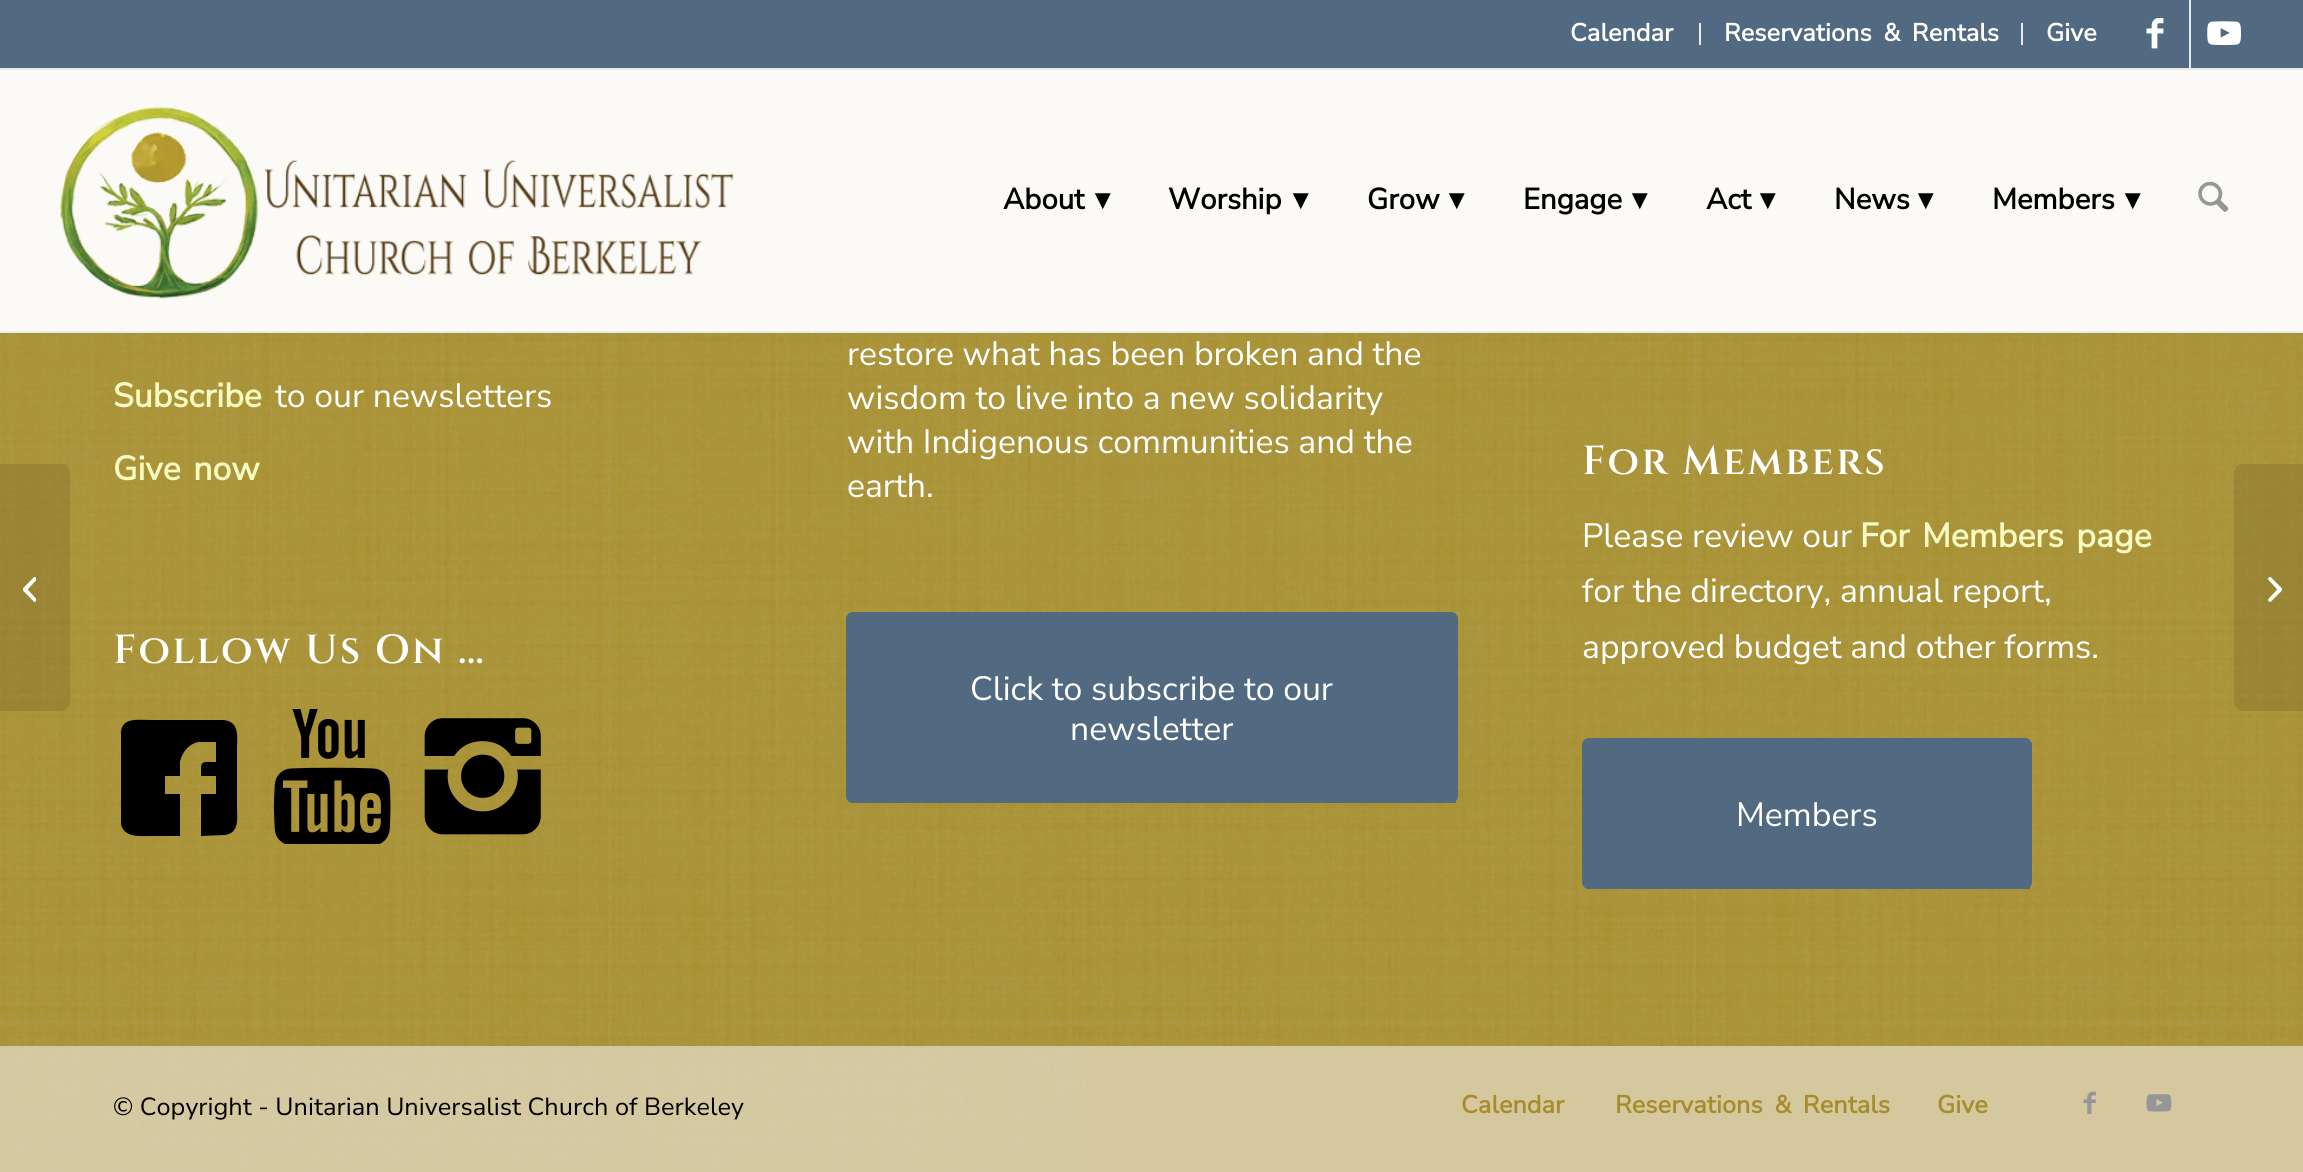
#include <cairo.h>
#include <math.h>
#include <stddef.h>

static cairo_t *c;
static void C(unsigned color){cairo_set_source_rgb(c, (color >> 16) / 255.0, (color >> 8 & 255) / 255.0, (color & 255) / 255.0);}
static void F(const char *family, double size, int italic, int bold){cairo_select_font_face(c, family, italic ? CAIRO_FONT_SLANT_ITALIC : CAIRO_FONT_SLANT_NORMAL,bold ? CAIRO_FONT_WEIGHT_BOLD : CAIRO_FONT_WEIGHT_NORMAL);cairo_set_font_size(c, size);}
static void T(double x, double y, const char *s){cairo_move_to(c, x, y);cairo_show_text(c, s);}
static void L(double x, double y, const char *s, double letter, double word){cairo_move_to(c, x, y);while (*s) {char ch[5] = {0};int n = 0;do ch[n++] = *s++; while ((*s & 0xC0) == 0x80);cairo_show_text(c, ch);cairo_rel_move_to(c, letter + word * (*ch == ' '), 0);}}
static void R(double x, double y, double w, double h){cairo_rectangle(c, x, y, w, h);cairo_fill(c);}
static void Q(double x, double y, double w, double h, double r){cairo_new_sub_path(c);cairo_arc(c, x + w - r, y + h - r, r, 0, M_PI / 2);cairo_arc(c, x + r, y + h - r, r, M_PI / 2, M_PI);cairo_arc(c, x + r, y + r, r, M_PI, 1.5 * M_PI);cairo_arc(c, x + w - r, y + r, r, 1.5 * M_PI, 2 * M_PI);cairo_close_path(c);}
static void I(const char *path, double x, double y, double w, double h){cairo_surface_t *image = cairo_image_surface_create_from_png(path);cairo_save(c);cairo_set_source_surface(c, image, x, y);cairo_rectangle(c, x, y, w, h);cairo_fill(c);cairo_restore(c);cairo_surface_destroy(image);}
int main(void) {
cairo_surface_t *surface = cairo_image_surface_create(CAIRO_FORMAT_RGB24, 2303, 1172);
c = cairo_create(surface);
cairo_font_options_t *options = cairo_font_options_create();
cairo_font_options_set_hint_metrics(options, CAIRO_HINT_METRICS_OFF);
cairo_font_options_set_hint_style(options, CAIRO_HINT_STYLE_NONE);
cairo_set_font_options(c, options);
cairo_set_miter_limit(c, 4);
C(0xa78f2e);
cairo_paint(c);
C(0x516a81);
R(0,0,2303,68);
C(0xebebeb);
R(0,68,2303,2);
R(1699,23,2,22);
F("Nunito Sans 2",24.75,0,1);
C(0xffffff);
T(1570,41,"Calendar");
C(0xebebeb);
R(2021,23,2,22);
C(0xffffff);
L(1724,41,"Reservations & Rentals",0,5);
T(2046,41,"Give");
C(0xebebeb);
R(2189,0,2,68);
I("1.png",2146,18,18,31);
I("2.png",2207,21,34,25);
I("6.png",0,70,2303,976);
cairo_set_source_rgba(c,1,1,1,0.95);
R(0,70,2303,261);
C(0xebebeb);
R(0,331,2303,2);
I("3.png",60,107,674,192);
F("Nunito Sans",29.25,0,1);
C(0x000000);
T(1003,209,"About");
F("DejaVu Sans",29.25,0,1);
T(1095,209,"▾");
F("Nunito Sans",29.25,0,1);
T(1168,209,"Worship");
F("DejaVu Sans",29.25,0,1);
T(1293,209,"▾");
F("Nunito Sans",29.25,0,1);
T(1367,209,"Grow");
F("DejaVu Sans",29.25,0,1);
T(1449,209,"▾");
F("Nunito Sans",29.25,0,1);
T(1523,209,"Engage");
F("DejaVu Sans",29.25,0,1);
T(1632,209,"▾");
F("Nunito Sans",29.25,0,1);
T(1706,209,"Act");
F("DejaVu Sans",29.25,0,1);
T(1760,209,"▾");
F("Nunito Sans",29.25,0,1);
T(1834,209,"News");
F("DejaVu Sans",29.25,0,1);
T(1918,209,"▾");
F("Nunito Sans",29.25,0,1);
T(1992,209,"Members");
F("DejaVu Sans",29.25,0,1);
T(2125,209,"▾");
I("4.png",2198,181,31,31);
cairo_set_source_rgba(c,0,0,0,0.1);
cairo_new_path(c);
cairo_move_to(c,0,464);
cairo_line_to(c,61,464);
cairo_curve_to(c,66,464,70,468,70,473);
cairo_line_to(c,70,702);
cairo_curve_to(c,70,707,66,711,61,711);
cairo_line_to(c,0,711);
cairo_close_path(c);
cairo_fill(c);
I("5.png",23,576,13,26);
F("Nunito Sans",33.75,0,1);
C(0xf6fac0);
T(113,407,"Subscribe");
F("Nunito Sans",33.75,0,0);
C(0xffffff);
T(275,407,"to our newsletters");
F("Nunito Sans",33.75,0,1);
C(0xf6fac0);
L(113,480,"Give now",0,4);
F("Cinzel SemiBold",40.5,0,0);
C(0xffffff);
L(113,663,"Follow Us On …",2.25,0);
C(0x000000);
cairo_new_path(c);
cairo_move_to(c,222,720);
cairo_curve_to(c,226,720,229,721,232,723);
cairo_curve_to(c,239,729,237,740,237,748);
cairo_line_to(c,237,807);
cairo_curve_to(c,237,817,240,833,225,835);
cairo_line_to(c,201,836);
cairo_line_to(c,201,794);
cairo_line_to(c,216,794);
cairo_line_to(c,216,776);
cairo_line_to(c,201,776);
cairo_curve_to(c,201,760,200,762,216,762);
cairo_line_to(c,216,742);
cairo_line_to(c,198,742);
cairo_curve_to(c,189,744,182,752,180,762);
cairo_line_to(c,180,776);
cairo_line_to(c,165,776);
cairo_line_to(c,165,794);
cairo_line_to(c,180,794);
cairo_line_to(c,180,836);
cairo_line_to(c,150,836);
cairo_curve_to(c,140,836,124,838,121,824);
cairo_line_to(c,121,732);
cairo_curve_to(c,122,717,139,720,150,720);
cairo_close_path(c);
cairo_fill(c);
I("7.png",273,709,118,135);
I("8.png",424,718,117,117);
F("Nunito Sans",33.75,0,0);
C(0xffffff);
T(847,365,"restore what has been broken and the");
T(847,409,"wisdom to live into a new solidarity");
T(847,453,"with Indigenous communities and the");
T(847,497,"earth.");
C(0x516a81);
Q(846,612,612,191,7);
cairo_fill(c);
R(851,801,605,2);
C(0xffffff);
T(970,700,"Click to subscribe to our");
T(1070,740,"newsletter");
F("Cinzel SemiBold",40.5,0,0);
L(1582,474,"For Members",2.25,0);
F("Nunito Sans",33.75,0,0);
T(1582,547,"Please review our");
F("Nunito Sans",33.75,0,1);
C(0xf6fac0);
L(1860,547,"For Members page",0,4);
cairo_save(c);
cairo_rectangle(c,1582,401,610,513);
cairo_clip(c);
F("Nunito Sans",33.75,0,0);
C(0xffffff);
T(1582,602,"for the directory, annual report,");
cairo_restore(c);
F("Nunito Sans",33.75,0,0);
C(0xffffff);
T(1582,658,"approved budget and other forms.");
C(0x516a81);
Q(1582,738,450,151,7);
cairo_fill(c);
R(1586,887,444,2);
C(0xffffff);
T(1736,826,"Members");
C(0xd5c89e);
R(0,1046,2303,126);
I("9.png",0,1048,1085,124);
F("Nunito Sans 2",24.75,0,0);
C(0x000000);
T(113,1115,"© Copyright - Unitarian Universalist Church of Berkeley");
F("Nunito Sans 2",24.75,0,1);
C(0xa78c2c);
T(1461,1113,"Calendar");
L(1615,1113,"Reservations & Rentals",0,5);
T(1937,1113,"Give");
I("10.png",2083,1091,13,23);
I("11.png",2146,1094,26,18);
cairo_set_source_rgba(c,0,0,0,0.1);
cairo_new_path(c);
cairo_move_to(c,2243,464);
cairo_line_to(c,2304,464);
cairo_line_to(c,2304,711);
cairo_line_to(c,2243,711);
cairo_curve_to(c,2238,711,2234,707,2234,702);
cairo_line_to(c,2234,473);
cairo_curve_to(c,2234,468,2238,464,2243,464);
cairo_close_path(c);
cairo_fill(c);
I("12.png",2268,577,14,25);
cairo_surface_write_to_png(surface, "o.png");
cairo_font_options_destroy(options);
cairo_destroy(c);
cairo_surface_destroy(surface);
return 0;
}
